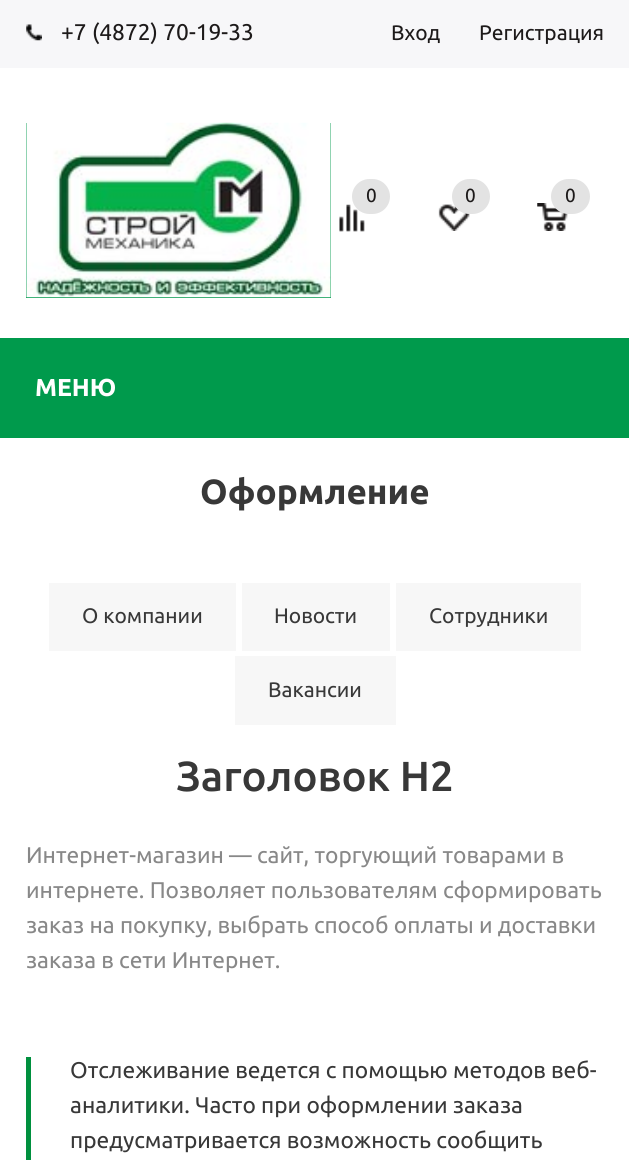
#include <cairo.h>
#include <math.h>
#include <stddef.h>

static cairo_t *c;
static void C(unsigned color){cairo_set_source_rgb(c, (color >> 16) / 255.0, (color >> 8 & 255) / 255.0, (color & 255) / 255.0);}
static void F(const char *family, double size, int italic, int bold){cairo_select_font_face(c, family, italic ? CAIRO_FONT_SLANT_ITALIC : CAIRO_FONT_SLANT_NORMAL,bold ? CAIRO_FONT_WEIGHT_BOLD : CAIRO_FONT_WEIGHT_NORMAL);cairo_set_font_size(c, size);}
static void T(double x, double y, const char *s){cairo_move_to(c, x, y);cairo_show_text(c, s);}
static void R(double x, double y, double w, double h){cairo_rectangle(c, x, y, w, h);cairo_fill(c);}
static void Q(double x, double y, double w, double h, double r){cairo_new_sub_path(c);cairo_arc(c, x + w - r, y + h - r, r, 0, M_PI / 2);cairo_arc(c, x + r, y + h - r, r, M_PI / 2, M_PI);cairo_arc(c, x + r, y + r, r, M_PI, 1.5 * M_PI);cairo_arc(c, x + w - r, y + r, r, 1.5 * M_PI, 2 * M_PI);cairo_close_path(c);}
static void I(const char *path, double x, double y, double w, double h){cairo_surface_t *image = cairo_image_surface_create_from_png(path);cairo_save(c);cairo_set_source_surface(c, image, x, y);cairo_rectangle(c, x, y, w, h);cairo_fill(c);cairo_restore(c);cairo_surface_destroy(image);}
int main(void) {
cairo_surface_t *surface = cairo_image_surface_create(CAIRO_FORMAT_RGB24, 629, 1160);
c = cairo_create(surface);
cairo_font_options_t *options = cairo_font_options_create();
cairo_font_options_set_hint_metrics(options, CAIRO_HINT_METRICS_OFF);
cairo_font_options_set_hint_style(options, CAIRO_HINT_STYLE_NONE);
cairo_set_font_options(c, options);
cairo_set_miter_limit(c, 4);
C(0xffffff);
cairo_paint(c);
C(0xf7f7f9);
R(0,0,629,68);
I("1.png",26,24,16,17);
F("Ubuntu",22.75,0,0);
C(0x1d1a1a);
T(61,40,"+7 (4872) 70-19-33");
F("Ubuntu",21,0,0);
T(391,40,"Вход");
T(479,40,"Регистрация");
C(0x009a4c);
R(26,123,305,175);
I("2.png",26,122,305,176);
I("3.png",339,204,26,28);
C(0xe3e3e3);
Q(352,179,38,35,17.5);
cairo_fill(c);
F("Ubuntu",19,0,0);
C(0x1d1a1a);
T(366,202,"0");
I("4.png",438,204,32,27);
C(0xe3e3e3);
Q(452,179,38,35,17.5);
cairo_fill(c);
C(0x1d1a1a);
T(465,202,"0");
I("5.png",537,203,31,28);
C(0xe3e3e3);
Q(551,179,39,35,17.5);
cairo_fill(c);
C(0x1d1a1a);
T(565,202,"0");
C(0x009a4c);
R(0,338,629,100);
F("Ubuntu",24.5,0,1);
C(0xffffff);
T(35,396,"МЕНЮ");
F("Ubuntu",35,0,1);
C(0x383838);
T(200,504,"Оформление");
C(0xf7f7f7);
R(49,583,187,68);
F("Ubuntu",21,0,0);
C(0x383838);
T(82,623,"О компании");
C(0xf7f7f7);
R(242,583,148,68);
C(0x383838);
T(274,623,"Новости");
C(0xf7f7f7);
R(396,583,185,68);
C(0x383838);
T(429,623,"Сотрудники");
C(0xf7f7f7);
R(235,656,161,69);
C(0x383838);
T(268,697,"Вакансии");
F("Ubuntu Medium",42,0,0);
T(176,791,"Заголовок H2");
F("Ubuntu",22.75,0,0);
C(0x888888);
T(26,863,"Интернет-магазин — сайт, торгующий товарами в");
T(26,898,"интернете. Позволяет пользователям сформировать");
T(26,933,"заказ на покупку, выбрать способ оплаты и доставки");
T(26,968,"заказа в сети Интернет.");
C(0x00903e);
R(26,1057,5,103);
C(0x383838);
T(70,1078,"Отслеживание ведется с помощью методов веб-");
T(70,1113,"аналитики. Часто при оформлении заказа");
T(70,1148,"предусматривается возможность сообщить");
cairo_surface_write_to_png(surface, "o.png");
cairo_font_options_destroy(options);
cairo_destroy(c);
cairo_surface_destroy(surface);
return 0;
}
